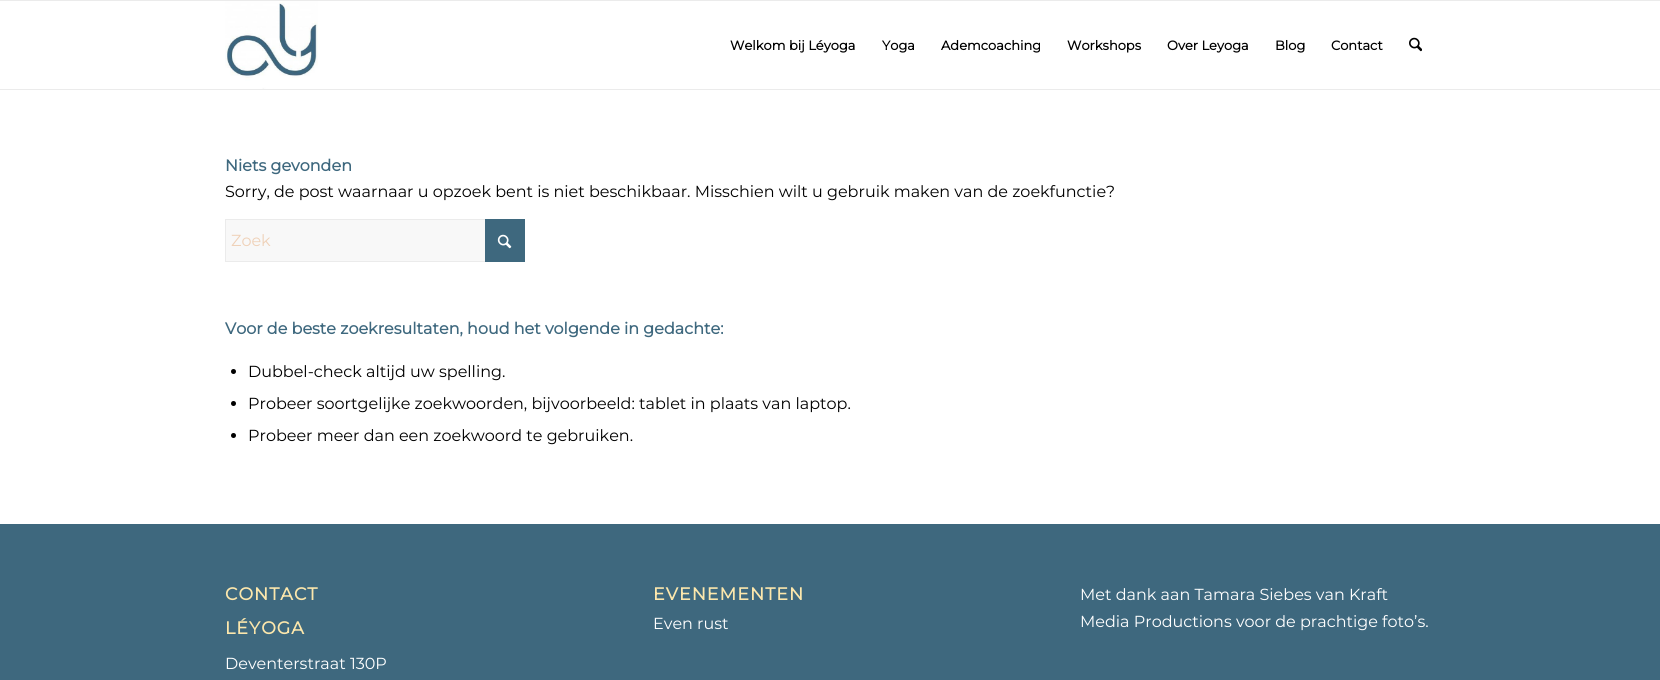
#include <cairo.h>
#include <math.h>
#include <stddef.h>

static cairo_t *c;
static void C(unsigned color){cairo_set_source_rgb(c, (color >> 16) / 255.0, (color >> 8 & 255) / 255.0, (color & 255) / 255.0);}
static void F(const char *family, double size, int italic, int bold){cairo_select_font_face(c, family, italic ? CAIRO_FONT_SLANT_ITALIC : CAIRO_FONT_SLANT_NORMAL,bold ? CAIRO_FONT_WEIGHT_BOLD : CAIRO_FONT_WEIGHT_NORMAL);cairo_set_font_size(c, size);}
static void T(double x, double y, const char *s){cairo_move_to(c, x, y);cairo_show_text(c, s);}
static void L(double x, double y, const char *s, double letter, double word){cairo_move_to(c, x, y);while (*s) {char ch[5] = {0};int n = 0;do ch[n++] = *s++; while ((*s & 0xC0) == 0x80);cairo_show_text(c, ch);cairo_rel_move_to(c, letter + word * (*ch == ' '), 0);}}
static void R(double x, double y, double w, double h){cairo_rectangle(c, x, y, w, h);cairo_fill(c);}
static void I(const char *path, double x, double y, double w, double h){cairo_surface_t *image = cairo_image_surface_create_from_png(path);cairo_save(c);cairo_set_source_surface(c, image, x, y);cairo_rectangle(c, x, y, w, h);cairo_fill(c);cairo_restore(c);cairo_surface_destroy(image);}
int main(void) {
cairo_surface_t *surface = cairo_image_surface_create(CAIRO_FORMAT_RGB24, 1660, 680);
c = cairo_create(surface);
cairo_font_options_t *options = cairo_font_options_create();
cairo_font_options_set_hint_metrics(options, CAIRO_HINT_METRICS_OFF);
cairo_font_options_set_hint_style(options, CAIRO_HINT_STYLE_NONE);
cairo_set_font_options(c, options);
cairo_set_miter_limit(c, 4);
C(0xffffff);
cairo_paint(c);
C(0xebebeb);
R(0,0,1660,1);
R(0,89,1660,1);
I("1.png",225,1,93,88);
F("Montserrat",13,0,1);
C(0x000000);
T(730,50,"Welkom bij Léyoga");
T(882,50,"Yoga");
T(941,50,"Ademcoaching");
T(1067,50,"Workshops");
T(1167,50,"Over Leyoga");
T(1275,50,"Blog");
T(1331,50,"Contact");
I("2.png",1409,37,13,15);
F("Montserrat",16,0,1);
C(0x3e687e);
T(225,171,"Niets gevonden");
F("Montserrat Thin",16,0,0);
C(0x000000);
T(225,197,"Sorry, de post waarnaar u opzoek bent is niet beschikbaar. Misschien wilt u gebruik maken van de zoekfunctie?");
C(0xf8f8f8);
R(226,220,259,41);
cairo_rectangle(c,225.5,219.5,299,42);
C(0xebebeb);
cairo_set_line_width(c,1);
cairo_stroke(c);
C(0xefd1b8);
T(231,246,"Zoek");
C(0x3e687e);
R(485,219,40,43);
I("3.png",497,234,15,15);
F("Montserrat",16,0,1);
T(225,334,"Voor de beste zoekresultaten, houd het volgende in gedachte:");
C(0x000000);
cairo_new_path(c);
cairo_arc(c,233.5,371.5,2.5,0,2 * M_PI);
cairo_fill(c);
F("Montserrat Thin",16,0,0);
T(248,377,"Dubbel-check altijd uw spelling.");
cairo_new_path(c);
cairo_arc(c,233.5,403.5,2.5,0,2 * M_PI);
cairo_fill(c);
T(248,409,"Probeer soortgelijke zoekwoorden, bijvoorbeeld: tablet in plaats van laptop.");
cairo_new_path(c);
cairo_arc(c,233.5,435.5,2.5,0,2 * M_PI);
cairo_fill(c);
T(248,441,"Probeer meer dan een zoekwoord te gebruiken.");
C(0x3e687e);
R(0,524,1660,156);
F("Montserrat",17.5,0,1);
C(0xfce7ac);
L(225,600,"CONTACT",1,0);
L(225,634,"LÉYOGA",1,0);
F("Montserrat Thin",16,0,0);
C(0xffffff);
T(225,669,"Deventerstraat 130P");
F("Montserrat",17.5,0,1);
C(0xfce7ac);
L(653,600,"EVENEMENTEN",1,0);
F("Montserrat Thin",16,0,0);
C(0xffffff);
T(653,629,"Even rust");
T(1080,600,"Met dank aan Tamara Siebes van Kraft");
T(1080,627,"Media Productions voor de prachtige foto’s.");
cairo_surface_write_to_png(surface, "o.png");
cairo_font_options_destroy(options);
cairo_destroy(c);
cairo_surface_destroy(surface);
return 0;
}
